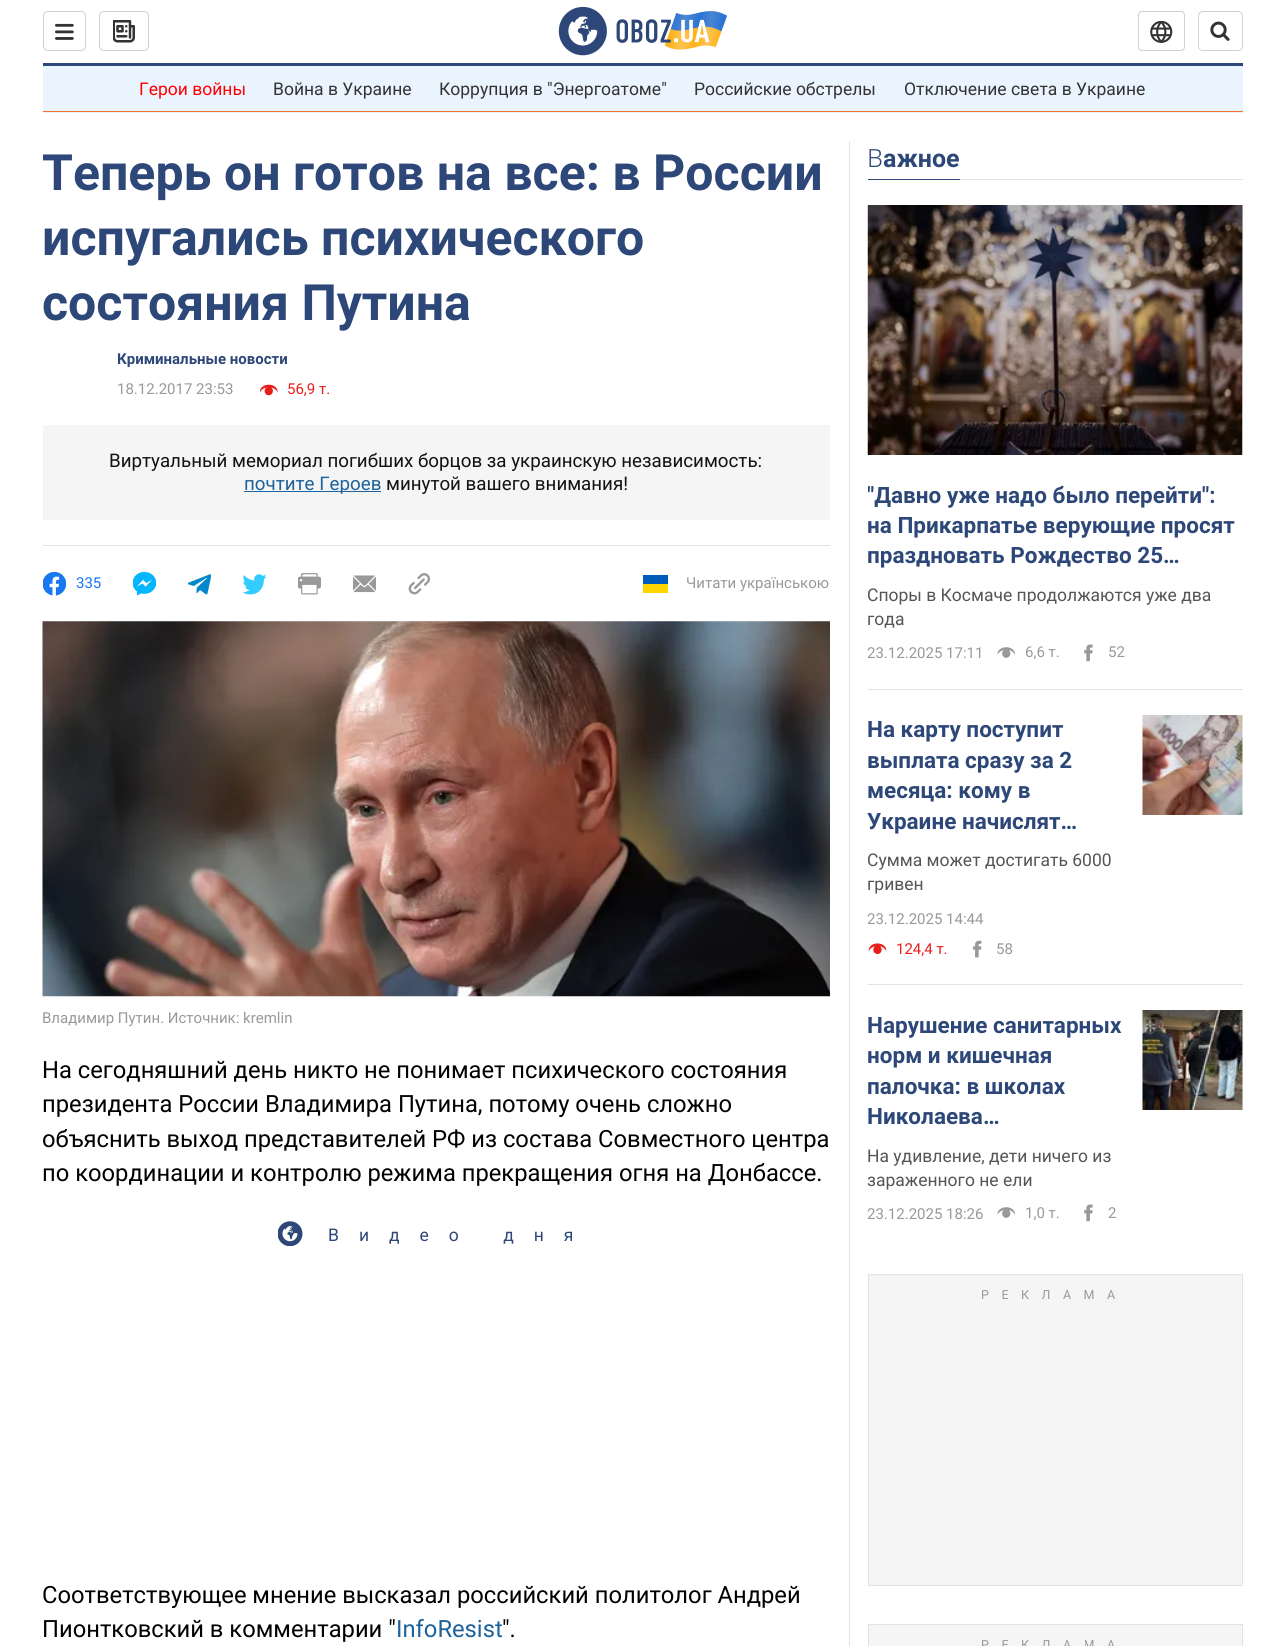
#include <cairo.h>
#include <math.h>
#include <stddef.h>

static cairo_t *c;
static void C(unsigned color){cairo_set_source_rgb(c, (color >> 16) / 255.0, (color >> 8 & 255) / 255.0, (color & 255) / 255.0);}
static void F(const char *family, double size, int italic, int bold){cairo_select_font_face(c, family, italic ? CAIRO_FONT_SLANT_ITALIC : CAIRO_FONT_SLANT_NORMAL,bold ? CAIRO_FONT_WEIGHT_BOLD : CAIRO_FONT_WEIGHT_NORMAL);cairo_set_font_size(c, size);}
static void T(double x, double y, const char *s){cairo_move_to(c, x, y);cairo_show_text(c, s);}
static void L(double x, double y, const char *s, double letter, double word){cairo_move_to(c, x, y);while (*s) {char ch[5] = {0};int n = 0;do ch[n++] = *s++; while ((*s & 0xC0) == 0x80);cairo_show_text(c, ch);cairo_rel_move_to(c, letter + word * (*ch == ' '), 0);}}
static void R(double x, double y, double w, double h){cairo_rectangle(c, x, y, w, h);cairo_fill(c);}
static void Q(double x, double y, double w, double h, double r){cairo_new_sub_path(c);cairo_arc(c, x + w - r, y + h - r, r, 0, M_PI / 2);cairo_arc(c, x + r, y + h - r, r, M_PI / 2, M_PI);cairo_arc(c, x + r, y + r, r, M_PI, 1.5 * M_PI);cairo_arc(c, x + w - r, y + r, r, 1.5 * M_PI, 2 * M_PI);cairo_close_path(c);}
static void I(const char *path, double x, double y, double w, double h){cairo_surface_t *image = cairo_image_surface_create_from_png(path);cairo_save(c);cairo_set_source_surface(c, image, x, y);cairo_rectangle(c, x, y, w, h);cairo_fill(c);cairo_restore(c);cairo_surface_destroy(image);}
int main(void) {
cairo_surface_t *surface = cairo_image_surface_create(CAIRO_FORMAT_RGB24, 1283, 1646);
c = cairo_create(surface);
cairo_font_options_t *options = cairo_font_options_create();
cairo_font_options_set_hint_metrics(options, CAIRO_HINT_METRICS_OFF);
cairo_font_options_set_hint_style(options, CAIRO_HINT_STYLE_NONE);
cairo_set_font_options(c, options);
cairo_set_miter_limit(c, 4);
cairo_pattern_t *gradient;
C(0xffffff);
cairo_paint(c);
C(0x2d4878);
R(43,63,1200,3);
Q(43.5,11.5,42,39,4.5);
C(0xd0d0d0);
cairo_set_line_width(c,1);
cairo_stroke(c);
I("1.png",55,23,19,17);
Q(99.5,11.5,49,39,4.5);
cairo_stroke(c);
I("2.png",113,20,22,23);
I("3.png",558,6,169,50);
Q(1138.5,11.5,46,39,3.5);
cairo_stroke(c);
I("4.png",1150,21,23,22);
Q(1198.5,11.5,44,39,4.5);
cairo_stroke(c);
C(0xffffff);
Q(1199,13,42,37,4);
cairo_fill(c);
I("5.png",1210,21,20,20);
C(0xeaf4ff);
R(43,66,1200,47);
C(0xf17132);
R(43,111,1200,1);
F("Roboto",17.5,0,0);
C(0xff0000);
T(139,95,"Герои войны");
C(0x333333);
T(273,95,"Война в Украине");
T(439,95,"Коррупция в \"Энергоатоме\"");
T(694,95,"Российские обстрелы");
T(904,95,"Отключение света в Украине");
C(0xe2e2e2);
R(43,545,787,1);
F("Roboto",50,0,1);
C(0x2d4878);
T(42,190,"Теперь он готов на все: в России");
T(42,255,"испугались психического");
T(42,320,"состояния Путина");
F("Roboto",15,0,1);
T(117,364,"Криминальные новости");
F("Roboto",15,0,0);
C(0x999999);
T(117,394,"18.12.2017 23:53");
I("6.png",260,384,18,12);
C(0xea1d1d);
T(287,394,"56,9 т.");
C(0xf5f5f5);
R(43,425,787,95);
F("Roboto",18.75,0,0);
C(0x121212);
T(109,467,"Виртуальный мемориал погибших борцов за украинскую независимость:");
C(0x1c629c);
R(244,491,137,1);
T(244,490,"почтите Героев");
C(0x121212);
T(386,490,"минутой вашего внимания!");
I("7.png",43,571,23,25);
F("Roboto",15,0,0);
C(0x1778f2);
T(76,588,"335");
I("8.png",133,571,23,25);
I("9.png",188,574,23,21);
I("10.png",243,574,23,21);
I("11.png",298,573,23,22);
I("12.png",353,575,23,18);
I("13.png",408,573,22,22);
C(0x005bbb);
R(643,575,25,9);
C(0xffd500);
R(643,584,25,9);
C(0x999999);
T(686,588,"Читати українською");
I("14.png",42,621,788,376);
T(42,1023,"Владимир Путин. Источник: kremlin");
F("Roboto",23.75,0,0);
C(0x000000);
T(42,1078,"На сегодняшний день никто не понимает психического состояния");
T(42,1112,"президента России Владимира Путина, потому очень сложно");
T(42,1147,"объяснить выход представителей РФ из состава Совместного центра");
T(42,1181,"по координации и контролю режима прекращения огня на Донбассе.");
I("15.png",278,1221,25,25);
F("Roboto",17.5,0,0);
C(0x2d4878);
L(328,1241,"Видео дня",20,0);
F("Roboto",23.75,0,0);
C(0x000000);
T(42,1603,"Соответствующее мнение высказал российский политолог Андрей");
T(42,1637,"Пионтковский в комментарии \"");
C(0x1c629c);
T(396,1637,"InfoResist");
C(0x000000);
T(502,1637,"\".");
C(0xe2e2e2);
R(849,141,1,1505);
R(960,179,283,1);
F("Noto Sans Light",25,0,0);
C(0x2d4878);
T(867,167,"В");
F("Roboto",25,0,1);
T(883,167,"ажное");
R(868,179,92,1);
C(0xe2e2e2);
R(868,689,375,1);
I("16.png",867,205,376,250);
gradient = cairo_pattern_create_linear(1055,205,1055,461);
cairo_pattern_add_color_stop_rgba(gradient,0,0,0,0,.3);
cairo_pattern_add_color_stop_rgba(gradient,1,0,0,0,0);
cairo_set_source(c,gradient);
cairo_pattern_destroy(gradient);
R(868,205,375,238);
cairo_save(c);
cairo_rectangle(c,868,480,375,91);
cairo_clip(c);
F("Roboto",22.5,0,1);
C(0x2d4878);
T(867,503,"\"Давно уже надо было перейти\":");
cairo_restore(c);
F("Roboto",22.5,0,1);
C(0x2d4878);
T(867,533,"на Прикарпатье верующие просят");
T(867,563,"праздновать Рождество 25…");
F("Roboto",17.5,0,0);
C(0x555555);
T(867,601,"Споры в Космаче продолжаются уже два");
T(867,625,"года");
F("Roboto",15,0,0);
C(0x999999);
T(867,658,"23.12.2025 17:11");
I("17.png",997,647,18,11);
T(1025,657,"6,6 т.");
I("18.png",1084,644,9,18);
T(1108,657,"52");
C(0xe2e2e2);
R(868,984,375,1);
F("Roboto",22.5,0,1);
C(0x2d4878);
T(867,737,"На карту поступит");
T(867,768,"выплата сразу за 2");
T(867,798,"месяца: кому в");
T(867,829,"Украине начислят…");
F("Roboto",17.5,0,0);
C(0x555555);
T(867,866,"Сумма может достигать 6000");
T(867,890,"гривен");
F("Roboto",15,0,0);
C(0x999999);
T(867,924,"23.12.2025 14:44");
I("19.png",868,943,19,12);
C(0xea1d1d);
T(896,954,"124,4 т.");
I("20.png",972,940,10,18);
C(0x999999);
T(996,954,"58");
I("21.png",1142,715,101,100);
F("Roboto",22.5,0,1);
C(0x2d4878);
T(867,1033,"Нарушение санитарных");
T(867,1063,"норм и кишечная");
T(867,1094,"палочка: в школах");
T(867,1124,"Николаева…");
F("Roboto",17.5,0,0);
C(0x555555);
T(867,1162,"На удивление, дети ничего из");
T(867,1186,"зараженного не ели");
F("Roboto",15,0,0);
C(0x999999);
T(867,1219,"23.12.2025 18:26");
I("17.png",997,1207,18,11);
T(1025,1218,"1,0 т.");
I("18.png",1084,1204,9,18);
T(1108,1218,"2");
I("22.png",1142,1010,101,100);
C(0xf5f5f5);
cairo_rectangle(c,868.5,1274.5,374,311);
cairo_fill_preserve(c);
C(0xe2e2e2);
cairo_stroke(c);
F("Roboto",12.5,0,0);
C(0x999999);
L(981,1299,"РЕКЛАМА",12.5,0);
C(0xf5f5f5);
cairo_rectangle(c,868.5,1624.5,374,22);
cairo_fill_preserve(c);
C(0xe2e2e2);
cairo_stroke(c);
C(0x999999);
L(981,1649,"РЕКЛАМА",12.5,0);
cairo_surface_write_to_png(surface, "o.png");
cairo_font_options_destroy(options);
cairo_destroy(c);
cairo_surface_destroy(surface);
return 0;
}
